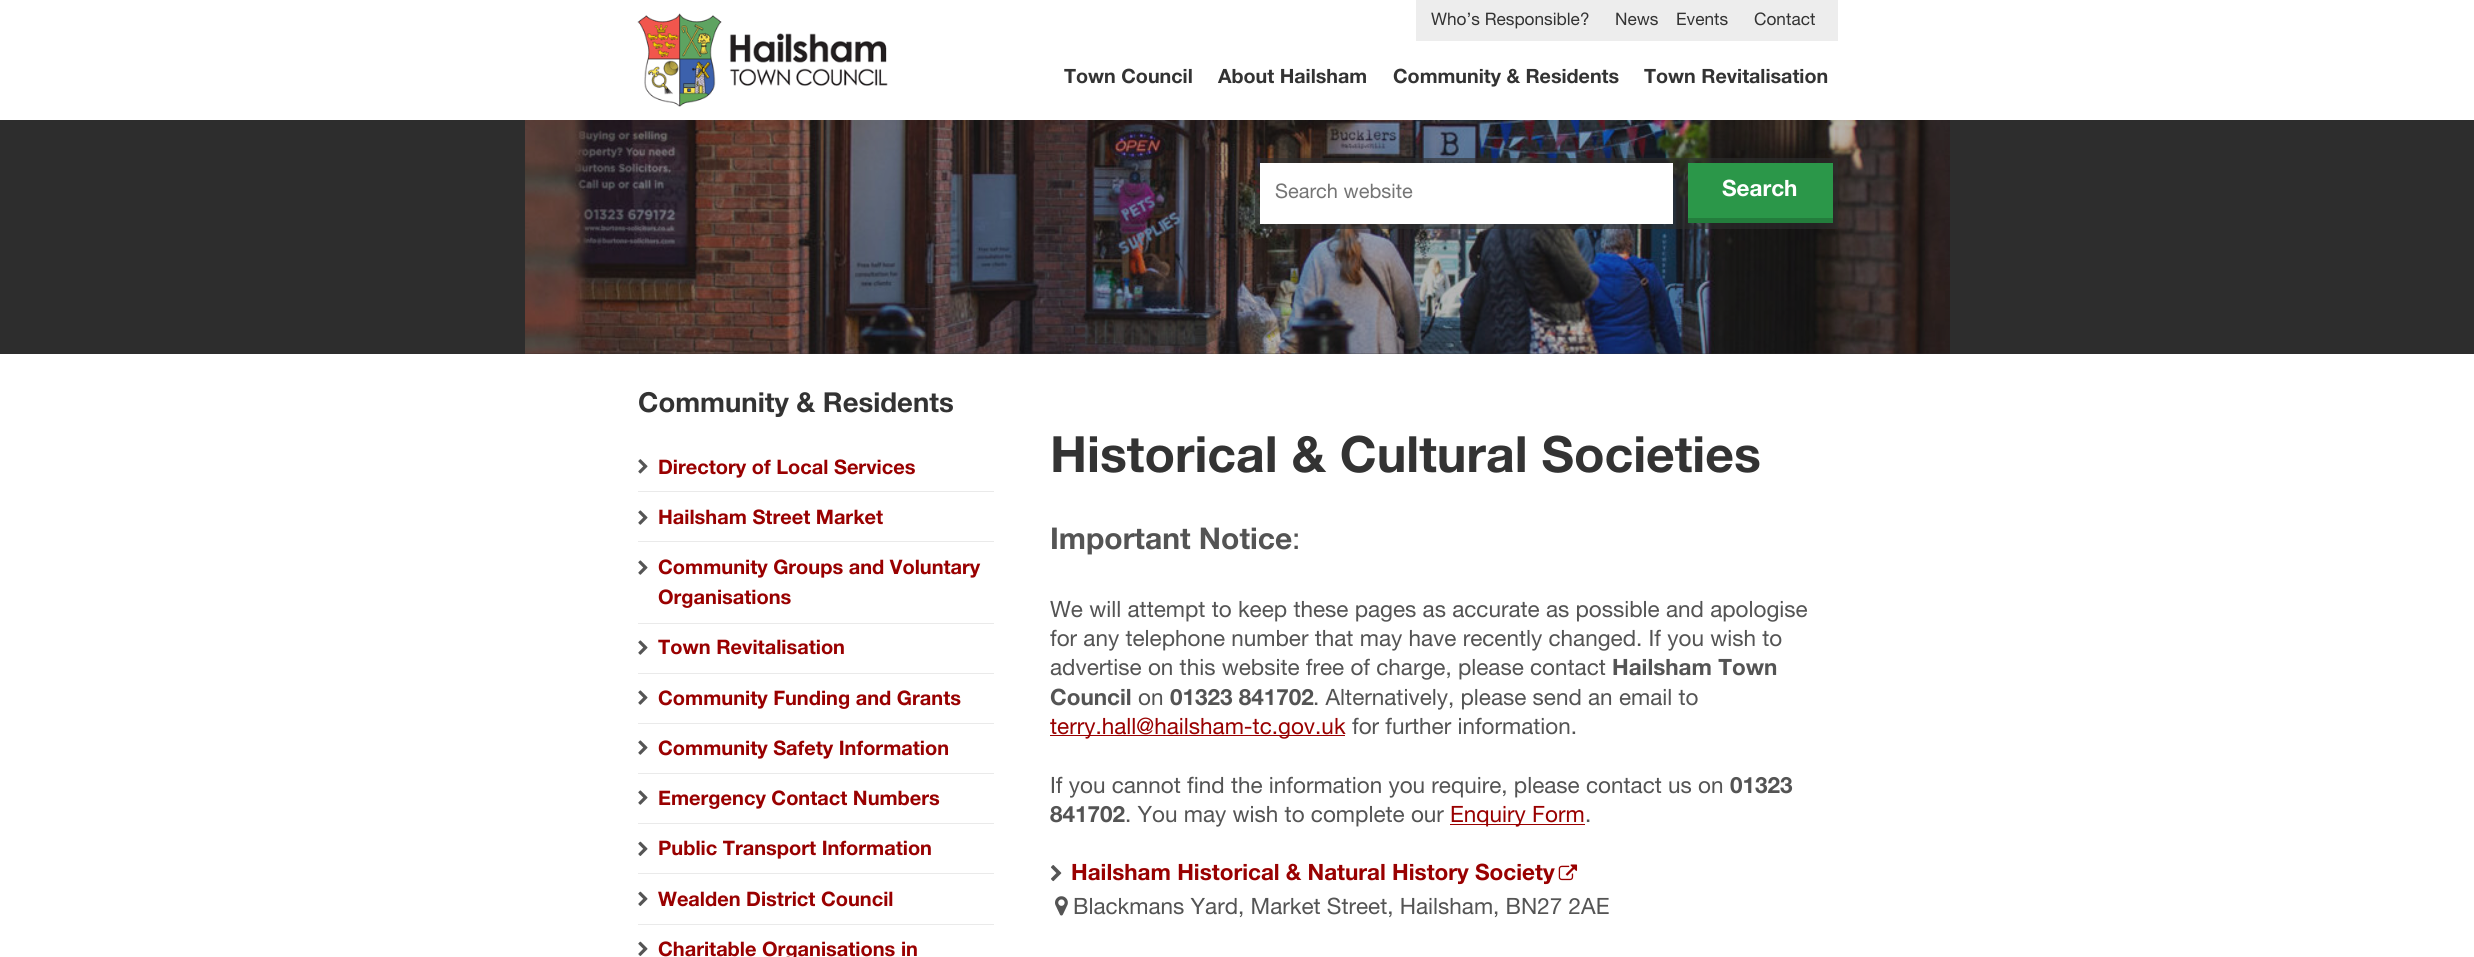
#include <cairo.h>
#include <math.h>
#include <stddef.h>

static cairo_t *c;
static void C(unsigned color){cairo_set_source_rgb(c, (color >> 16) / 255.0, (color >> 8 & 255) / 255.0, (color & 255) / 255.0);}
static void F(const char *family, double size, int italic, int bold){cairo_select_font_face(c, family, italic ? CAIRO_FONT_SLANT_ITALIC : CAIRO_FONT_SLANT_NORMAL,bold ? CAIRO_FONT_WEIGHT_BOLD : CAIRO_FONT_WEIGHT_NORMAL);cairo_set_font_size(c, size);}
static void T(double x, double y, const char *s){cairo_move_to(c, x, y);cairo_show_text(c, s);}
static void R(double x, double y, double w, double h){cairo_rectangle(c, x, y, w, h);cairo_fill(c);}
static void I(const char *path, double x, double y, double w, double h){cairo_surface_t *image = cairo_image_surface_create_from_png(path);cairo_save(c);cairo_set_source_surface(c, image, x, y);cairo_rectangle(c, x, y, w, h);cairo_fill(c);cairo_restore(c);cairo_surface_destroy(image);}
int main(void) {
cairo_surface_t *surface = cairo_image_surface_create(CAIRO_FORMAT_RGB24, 2474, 957);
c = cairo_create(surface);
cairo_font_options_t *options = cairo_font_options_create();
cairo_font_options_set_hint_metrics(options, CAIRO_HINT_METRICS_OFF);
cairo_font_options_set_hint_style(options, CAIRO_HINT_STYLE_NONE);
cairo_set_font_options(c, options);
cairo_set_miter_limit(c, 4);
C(0xffffff);
cairo_paint(c);
I("1.png",637,13,251,94);
C(0xededed);
R(1416,0,422,41);
F("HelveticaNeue",17.25,0,0);
C(0x333333);
T(1431,25,"Who’s Responsible?");
T(1615,25,"News");
T(1676,25,"Events");
T(1754,25,"Contact");
F("HelveticaNeue",19.7,0,1);
T(1064,83,"Town Council");
T(1218,83,"About Hailsham");
T(1393,83,"Community & Residents");
T(1644,83,"Town Revitalisation");
C(0x2d2d2d);
R(0,120,2474,234);
I("2.png",525,120,1425,234);
cairo_set_source_rgba(c,0.176,0.176,0.176,0.6);
R(1255,158,583,71);
C(0xffffff);
R(1260,163,413,61);
F("HelveticaNeue",20,0,0);
C(0x757575);
T(1275,198,"Search website");
C(0x2b9749);
R(1688,163,145,55);
C(0x237d3c);
R(1688,218,145,5);
F("HelveticaNeue",22.5,0,1);
C(0xffffff);
T(1722,196,"Search");
F("HelveticaNeue",27.5,0,1);
C(0x333333);
T(638,412,"Community & Residents");
C(0xeaeaea);
R(638,491,356,1);
I("3.png",638,459,10,15);
F("HelveticaNeue",20,0,1);
C(0x990000);
T(658,474,"Directory of Local Services");
C(0xeaeaea);
R(638,541,356,1);
I("4.png",638,510,10,15);
C(0x990000);
T(658,524,"Hailsham Street Market");
C(0xeaeaea);
R(638,623,356,1);
I("4.png",638,560,10,15);
C(0x990000);
T(658,574,"Community Groups and Voluntary");
T(658,604,"Organisations");
C(0xeaeaea);
R(638,673,356,1);
I("4.png",638,640,10,15);
C(0x990000);
T(658,654,"Town Revitalisation");
C(0xeaeaea);
R(638,723,356,1);
I("4.png",638,690,10,15);
C(0x990000);
T(658,705,"Community Funding and Grants");
C(0xeaeaea);
R(638,773,356,1);
I("4.png",638,740,10,15);
C(0x990000);
T(658,755,"Community Safety Information");
C(0xeaeaea);
R(638,823,356,1);
I("4.png",638,790,10,15);
C(0x990000);
T(658,805,"Emergency Contact Numbers");
C(0xeaeaea);
R(638,873,356,1);
I("5.png",638,841,10,15);
C(0x990000);
T(658,855,"Public Transport Information");
C(0xeaeaea);
R(638,924,356,1);
I("5.png",638,891,10,15);
C(0x990000);
T(658,906,"Wealden District Council");
I("5.png",638,941,10,15);
T(658,956,"Charitable Organisations in");
F("HelveticaNeue",50,0,1);
C(0x333333);
T(1050,472,"Historical & Cultural Societies");
F("HelveticaNeue",30,0,1);
C(0x545454);
T(1050,549,"Important Notice");
F("HelveticaNeue",30,0,0);
T(1292,549,":");
F("HelveticaNeue",22.5,0,0);
T(1050,617,"We will attempt to keep these pages as accurate as possible and apologise");
T(1050,646,"for any telephone number that may have recently changed. If you wish to");
T(1050,675,"advertise on this website free of charge, please contact");
F("HelveticaNeue",22.5,0,1);
T(1612,675,"Hailsham Town");
T(1050,705,"Council");
F("HelveticaNeue",22.5,0,0);
T(1138,705,"on");
F("HelveticaNeue",22.5,0,1);
T(1170,705,"01323 841702");
F("HelveticaNeue",22.5,0,0);
T(1313,705,". Alternatively, please send an email to");
C(0x990000);
R(1050,735,295,1);
T(1050,734,"terry.hall@hailsham-tc.gov.uk");
C(0x545454);
T(1352,734,"for further information.");
T(1050,793,"If you cannot find the information you require, please contact us on");
F("HelveticaNeue",22.5,0,1);
T(1730,793,"01323");
T(1050,822,"841702");
F("HelveticaNeue",22.5,0,0);
T(1125,822,". You may wish to complete our");
C(0x990000);
R(1450,824,135,1);
T(1450,822,"Enquiry Form");
C(0x545454);
T(1585,822,".");
I("6.png",1051,865,11,17);
F("HelveticaNeue",22.5,0,1);
C(0x990000);
T(1071,880,"Hailsham Historical & Natural History Society");
I("7.png",1558,864,20,17);
I("8.png",1055,896,13,20);
F("HelveticaNeue",22.5,0,0);
C(0x545454);
T(1073,914,"Blackmans Yard, Market Street, Hailsham, BN27 2AE");
cairo_surface_write_to_png(surface, "o.png");
cairo_font_options_destroy(options);
cairo_destroy(c);
cairo_surface_destroy(surface);
return 0;
}
